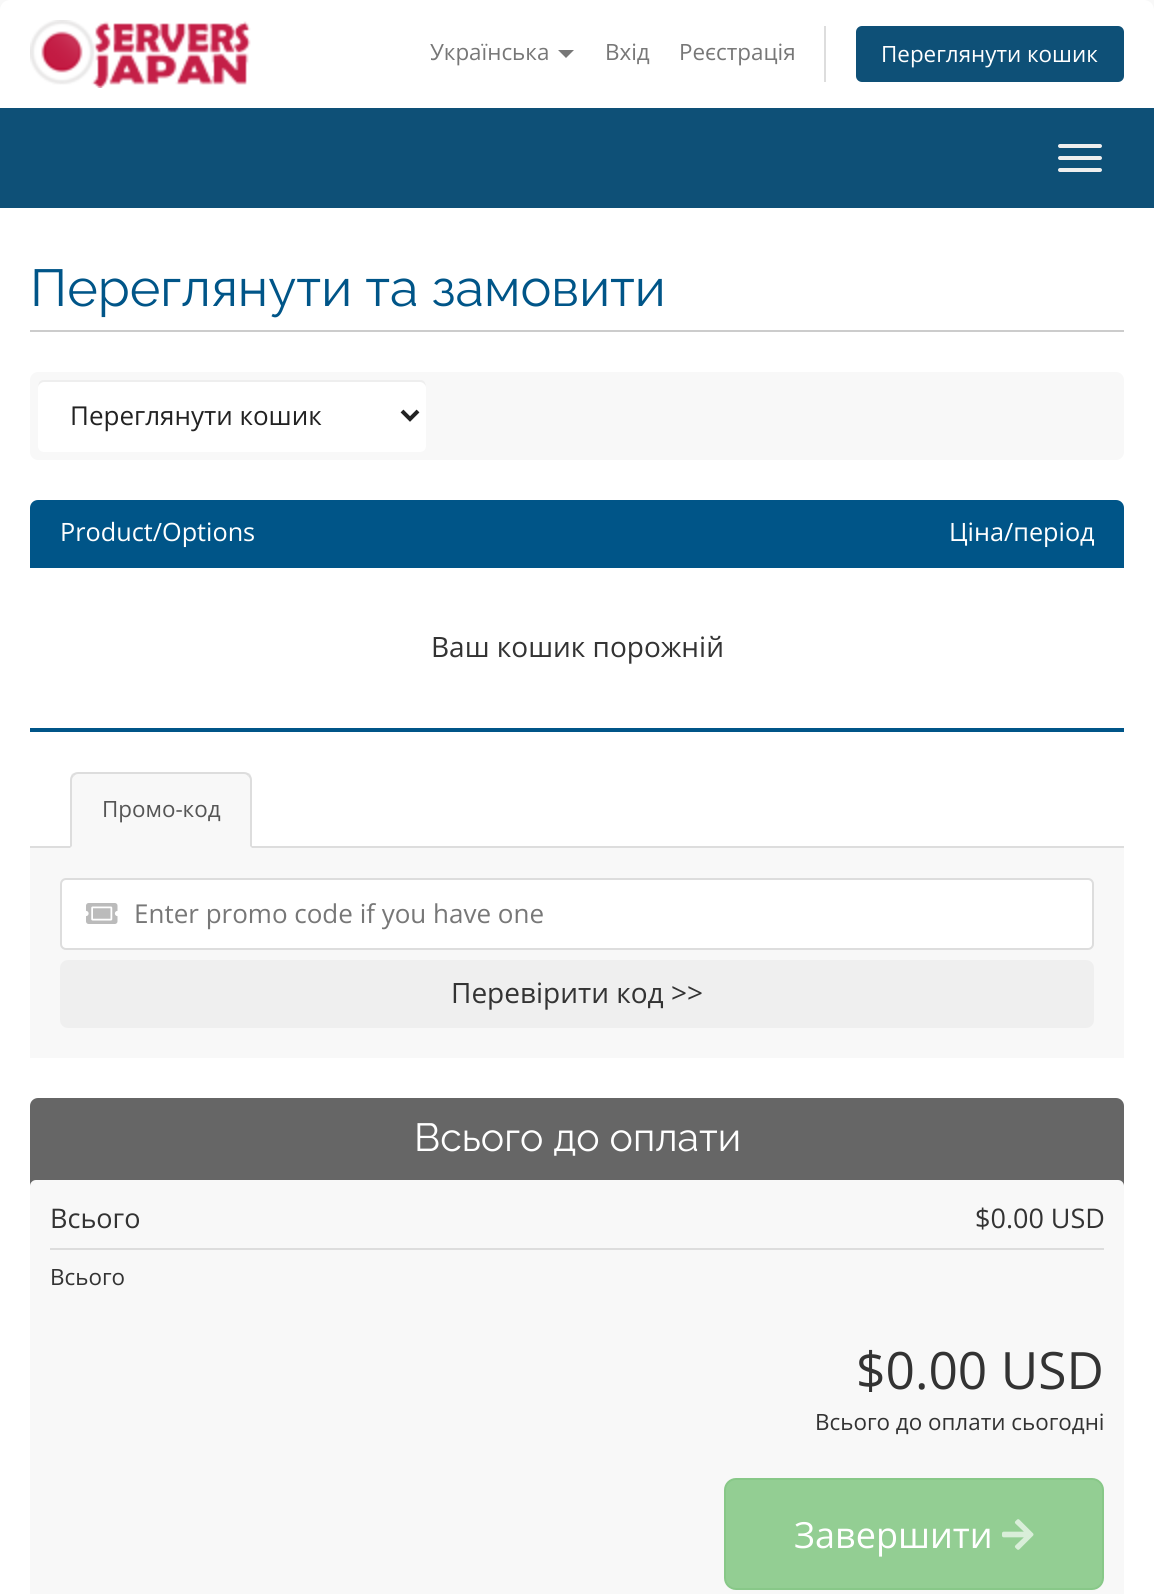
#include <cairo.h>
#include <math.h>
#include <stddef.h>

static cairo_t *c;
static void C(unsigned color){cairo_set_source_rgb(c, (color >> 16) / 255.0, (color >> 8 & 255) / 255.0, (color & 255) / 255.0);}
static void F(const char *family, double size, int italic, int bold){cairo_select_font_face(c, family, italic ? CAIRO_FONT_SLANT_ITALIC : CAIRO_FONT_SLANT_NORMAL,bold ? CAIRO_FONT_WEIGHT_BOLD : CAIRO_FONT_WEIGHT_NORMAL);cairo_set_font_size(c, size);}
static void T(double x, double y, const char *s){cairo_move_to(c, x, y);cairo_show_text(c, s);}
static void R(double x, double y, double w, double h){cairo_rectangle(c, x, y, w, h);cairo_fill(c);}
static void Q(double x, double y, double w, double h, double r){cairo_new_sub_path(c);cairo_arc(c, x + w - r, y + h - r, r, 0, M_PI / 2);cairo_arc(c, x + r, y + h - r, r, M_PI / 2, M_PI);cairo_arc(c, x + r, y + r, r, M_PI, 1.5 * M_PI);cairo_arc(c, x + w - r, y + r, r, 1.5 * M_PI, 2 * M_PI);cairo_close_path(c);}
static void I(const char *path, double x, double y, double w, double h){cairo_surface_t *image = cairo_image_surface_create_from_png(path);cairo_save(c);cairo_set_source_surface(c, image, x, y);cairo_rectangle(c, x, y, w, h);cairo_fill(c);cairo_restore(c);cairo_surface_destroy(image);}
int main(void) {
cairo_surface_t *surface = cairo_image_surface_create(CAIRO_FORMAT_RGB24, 1154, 1594);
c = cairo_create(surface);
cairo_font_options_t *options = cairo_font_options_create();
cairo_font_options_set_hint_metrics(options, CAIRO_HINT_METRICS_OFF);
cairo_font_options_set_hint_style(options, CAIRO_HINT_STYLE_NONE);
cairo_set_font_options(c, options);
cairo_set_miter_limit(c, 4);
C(0xf8f8f8);
cairo_paint(c);
C(0xffffff);
cairo_new_path(c);
cairo_move_to(c,10,0);
cairo_line_to(c,1144,0);
cairo_curve_to(c,1149.5,0,1154,4.5,1154,10);
cairo_line_to(c,1154,108);
cairo_line_to(c,0,108);
cairo_line_to(c,0,10);
cairo_curve_to(c,0,4.5,4.5,0,10,0);
cairo_close_path(c);
cairo_fill(c);
I("1.png",30,20,221,68);
F("Open Sans",22.4,0,0);
C(0x777777);
T(430,60,"Українська");
cairo_new_path(c);
cairo_move_to(c,558,50);
cairo_line_to(c,574,50);
cairo_line_to(c,566,58);
cairo_close_path(c);
cairo_fill(c);
T(605,60,"Вхід");
T(679,60,"Реєстрація");
C(0xdddddd);
R(824,26,2,56);
C(0x0e5077);
Q(856,26,268,56,6);
cairo_fill(c);
C(0xffffff);
T(881,62,"Переглянути кошик");
C(0x0e5077);
R(0,108,1154,100);
C(0xeeeeee);
Q(1058,144,44,4,2);
cairo_fill(c);
Q(1058,156,44,4,2);
cairo_fill(c);
Q(1058,168,44,4,2);
cairo_fill(c);
C(0xffffff);
R(0,208,1154,1386);
C(0xcccccc);
R(30,330,1094,2);
F("Raleway",52,0,0);
C(0x005588);
T(30,306,"Переглянути та замовити");
C(0xf8f8f8);
Q(30,372,1094,88,8);
cairo_fill(c);
C(0xffffff);
Q(38,380,388,72,6);
cairo_fill(c);
cairo_set_source_rgba(c,0,0,0,0.07);
cairo_new_path(c);
cairo_move_to(c,44,382);
cairo_line_to(c,420,382);
cairo_curve_to(c,423,382,426,385,426,388);
cairo_curve_to(c,426,384,425,380,420,380);
cairo_line_to(c,44,380);
cairo_curve_to(c,39,380,38,384,38,388);
cairo_curve_to(c,38,385,41,382,44,382);
cairo_close_path(c);
cairo_fill(c);
cairo_new_path(c);
cairo_move_to(c,402,411);
cairo_line_to(c,410,419);
cairo_line_to(c,418,411);
C(0x222222);
cairo_set_line_width(c,4);
cairo_stroke(c);
F("Open Sans",26,0,0);
T(70,425,"Переглянути кошик");
C(0x005588);
cairo_new_path(c);
cairo_move_to(c,38,500);
cairo_line_to(c,1116,500);
cairo_curve_to(c,1120.5,500,1124,503.5,1124,508);
cairo_line_to(c,1124,568);
cairo_line_to(c,30,568);
cairo_line_to(c,30,508);
cairo_curve_to(c,30,503.5,33.5,500,38,500);
cairo_close_path(c);
cairo_fill(c);
F("Open Sans",25.25,0,0);
C(0xffffff);
T(60,541,"Product/Options");
T(949,541,"Ціна/період");
C(0x005588);
R(30,728,1094,4);
F("Open Sans",28,0,0);
C(0x333333);
T(431,657,"Ваш кошик порожній");
C(0xdddddd);
R(30,846,1094,2);
C(0xf8f8f8);
cairo_new_path(c);
cairo_move_to(c,78,772);
cairo_line_to(c,244,772);
cairo_curve_to(c,248.5,772,252,775.5,252,780);
cairo_line_to(c,252,848);
cairo_line_to(c,70,848);
cairo_line_to(c,70,780);
cairo_curve_to(c,70,775.5,73.5,772,78,772);
cairo_close_path(c);
cairo_fill(c);
C(0xdddddd);
cairo_new_path(c);
cairo_move_to(c,78,772);
cairo_curve_to(c,76,772,74,773,72,774);
cairo_line_to(c,74,776);
cairo_curve_to(c,75,775,76,774,78,774);
cairo_line_to(c,244,774);
cairo_curve_to(c,246,774,247,775,248,776);
cairo_line_to(c,250,774);
cairo_curve_to(c,248,773,246,772,244,772);
cairo_close_path(c);
cairo_fill(c);
cairo_new_path(c);
cairo_move_to(c,252,848);
cairo_line_to(c,252,780);
cairo_curve_to(c,252,778,251,776,250,774);
cairo_line_to(c,248,776);
cairo_curve_to(c,249,777,250,778,250,780);
cairo_line_to(c,250,846);
cairo_close_path(c);
cairo_fill(c);
cairo_new_path(c);
cairo_move_to(c,70,848);
cairo_line_to(c,72,846);
cairo_line_to(c,72,780);
cairo_curve_to(c,72,778,73,777,74,776);
cairo_line_to(c,72,774);
cairo_curve_to(c,71,776,70,778,70,780);
cairo_close_path(c);
cairo_fill(c);
F("Open Sans",22.4,0,0);
C(0x555555);
T(102,817,"Промо-код");
C(0xf8f8f8);
R(30,848,1094,210);
C(0xffffff);
Q(61,879,1032,70,5);
cairo_fill_preserve(c);
C(0xdddddd);
cairo_set_line_width(c,2);
cairo_stroke(c);
I("2.png",86,903,32,21);
F("Open Sans",26,0,0);
C(0x777777);
T(134,923,"Enter promo code if you have one");
C(0xefefef);
Q(60,960,1034,68,8);
cairo_fill(c);
F("Open Sans",28,0,0);
C(0x333333);
T(451,1003,"Перевірити код >>");
C(0x666666);
Q(30,1098,1094,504,8);
cairo_fill(c);
F("Raleway",39.25,0,0);
C(0xffffff);
T(414,1151,"Всього до оплати");
C(0xf8f8f8);
Q(30,1180,1094,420,6);
cairo_fill(c);
C(0xdddddd);
R(50,1248,1054,2);
F("Open Sans",27,0,0);
C(0x333333);
T(50,1228,"Всього");
T(975,1228,"$0.00 USD");
F("Open Sans",22.4,0,0);
T(50,1285,"Всього");
F("Open Sans",51.5,0,0);
T(856,1389,"$0.00 USD");
F("Open Sans",22.4,0,0);
T(815,1430,"Всього до оплати сьогодні");
C(0x93ce93);
Q(725,1479,378,110,11);
cairo_fill_preserve(c);
C(0x88c888);
cairo_stroke(c);
F("Open Sans",36,0,0);
C(0xffffff);
T(794,1548,"Завершити");
I("3.png",1002,1519,32,31);
cairo_surface_write_to_png(surface, "o.png");
cairo_font_options_destroy(options);
cairo_destroy(c);
cairo_surface_destroy(surface);
return 0;
}
